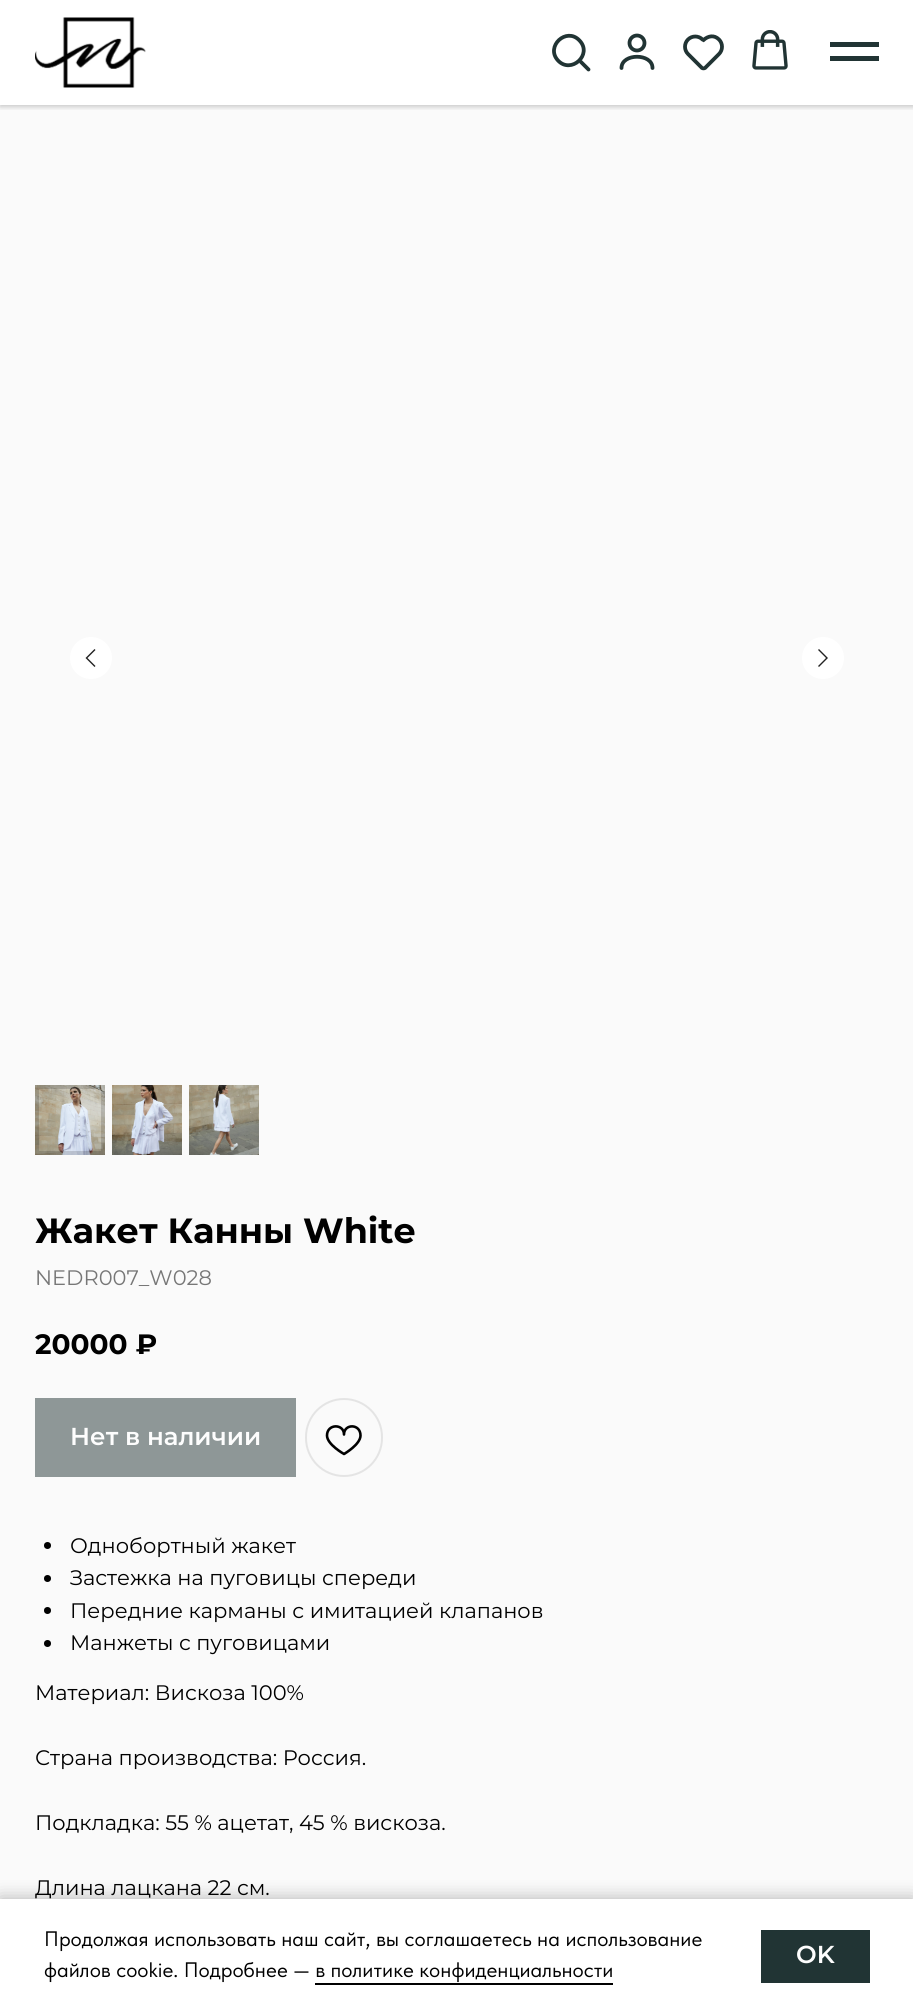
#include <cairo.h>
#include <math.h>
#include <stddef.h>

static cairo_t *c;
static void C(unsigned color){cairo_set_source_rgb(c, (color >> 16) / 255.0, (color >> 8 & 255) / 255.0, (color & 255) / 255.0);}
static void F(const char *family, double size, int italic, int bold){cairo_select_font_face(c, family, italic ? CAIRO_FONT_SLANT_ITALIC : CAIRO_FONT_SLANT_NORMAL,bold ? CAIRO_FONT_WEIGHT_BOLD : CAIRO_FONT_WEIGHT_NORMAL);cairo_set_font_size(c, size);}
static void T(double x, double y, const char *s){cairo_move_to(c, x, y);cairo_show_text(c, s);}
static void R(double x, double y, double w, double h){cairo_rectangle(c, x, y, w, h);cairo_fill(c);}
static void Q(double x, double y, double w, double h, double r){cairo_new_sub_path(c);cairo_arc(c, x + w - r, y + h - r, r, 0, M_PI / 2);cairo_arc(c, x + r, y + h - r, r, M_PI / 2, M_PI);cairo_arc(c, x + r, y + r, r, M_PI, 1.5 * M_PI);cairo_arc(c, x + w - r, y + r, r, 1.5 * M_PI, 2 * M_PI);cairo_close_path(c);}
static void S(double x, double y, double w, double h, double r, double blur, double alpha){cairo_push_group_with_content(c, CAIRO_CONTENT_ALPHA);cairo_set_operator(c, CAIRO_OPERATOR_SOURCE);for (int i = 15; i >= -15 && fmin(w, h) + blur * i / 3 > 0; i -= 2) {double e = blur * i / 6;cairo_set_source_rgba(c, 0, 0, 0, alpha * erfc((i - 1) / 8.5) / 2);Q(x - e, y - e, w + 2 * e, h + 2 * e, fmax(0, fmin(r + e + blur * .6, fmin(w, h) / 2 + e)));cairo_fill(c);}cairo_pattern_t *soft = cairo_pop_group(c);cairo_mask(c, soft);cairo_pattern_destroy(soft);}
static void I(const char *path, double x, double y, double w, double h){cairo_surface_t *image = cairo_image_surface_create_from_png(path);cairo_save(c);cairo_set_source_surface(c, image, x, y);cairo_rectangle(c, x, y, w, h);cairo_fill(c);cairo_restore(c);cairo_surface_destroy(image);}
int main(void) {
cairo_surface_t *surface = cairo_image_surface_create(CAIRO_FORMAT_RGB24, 913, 2012);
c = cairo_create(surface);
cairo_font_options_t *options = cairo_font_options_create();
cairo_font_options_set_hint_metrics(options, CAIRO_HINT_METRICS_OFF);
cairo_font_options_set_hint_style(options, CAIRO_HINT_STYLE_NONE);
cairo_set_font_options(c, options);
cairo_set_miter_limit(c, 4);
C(0xffffff);
cairo_paint(c);
C(0xfafafa);
R(0,105,913,1794);
C(0xffffff);
cairo_arc(c,91,658,21,0,2 * M_PI);
cairo_fill(c);
cairo_new_path(c);
cairo_move_to(c,95,666.5);
cairo_line_to(c,86.5,658);
cairo_line_to(c,95,649.5);
C(0x222222);
cairo_set_line_width(c,1.4);
cairo_stroke(c);
C(0xffffff);
cairo_arc(c,823,658,21,0,2 * M_PI);
cairo_fill(c);
cairo_new_path(c);
cairo_move_to(c,818.5,649.5);
cairo_line_to(c,827,658);
cairo_line_to(c,818.5,666.5);
C(0x222222);
cairo_stroke(c);
I("1.png",35,1085,70,70);
cairo_rectangle(c,37,1087,66,66);
cairo_set_source_rgba(c,0,0,0,0.15);
cairo_set_line_width(c,4);
cairo_stroke(c);
I("2.png",112,1085,70,70);
I("3.png",189,1085,70,70);
F("Montserrat",35,0,1);
C(0x000000);
T(35,1243,"Жакет Канны White");
F("Montserrat",21,0,0);
C(0x777777);
T(35,1285,"NEDR007_W028");
F("Montserrat",28,0,1);
C(0x000000);
T(35,1354,"20000 ₽");
C(0x8e9797);
R(35,1398,261,79);
F("Montserrat SemiBold",24.5,0,0);
C(0xfdfdfd);
T(70,1445,"Нет в наличии");
Q(306,1399,76,77,38);
C(0xe4e4e4);
cairo_set_line_width(c,2);
cairo_stroke(c);
cairo_new_path(c);
cairo_move_to(c,360.5,1435.5);
cairo_curve_to(c,360.5,1444.5,344,1454,344,1454);
cairo_curve_to(c,344,1454,327,1444.5,327,1435.5);
cairo_curve_to(c,327,1423.5,344,1423.5,344,1434.5);
cairo_curve_to(c,344,1423.5,360.5,1423.5,360.5,1435.5);
cairo_close_path(c);
C(0x000000);
cairo_set_line_width(c,2.6);
cairo_set_line_join(c,CAIRO_LINE_JOIN_ROUND);
cairo_stroke(c);
cairo_arc(c,47.5,1545.5,3.5,0,2 * M_PI);
cairo_fill(c);
F("Montserrat",21,0,0);
T(70,1553,"Однобортный жакет");
cairo_new_path(c);
cairo_arc(c,47.5,1578.5,3.5,0,2 * M_PI);
cairo_fill(c);
T(70,1585,"Застежка на пуговицы спереди");
cairo_new_path(c);
cairo_arc(c,47.5,1610.5,3.5,0,2 * M_PI);
cairo_fill(c);
T(70,1618,"Передние карманы с имитацией клапанов");
cairo_new_path(c);
cairo_arc(c,47.5,1643.5,3.5,0,2 * M_PI);
cairo_fill(c);
T(70,1650,"Манжеты с пуговицами");
T(35,1700,"Материал: Вискоза 100%");
T(35,1765,"Страна производства: Россия.");
T(35,1830,"Подкладка: 55 % ацетат, 45 % вискоза.");
T(35,1895,"Длина лацкана 22 см.");
cairo_save(c);
cairo_rectangle(c,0,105,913,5);
cairo_clip(c);
C(0x000000);
S(0,2,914,105,0,2.5,.2);
cairo_restore(c);
I("4.png",35,17,111,71);
cairo_new_path(c);
cairo_move_to(c,579.5,40.5);
cairo_curve_to(c,593,54.5,571,74.5,558,60.5);
cairo_curve_to(c,545,46.5,566.5,26.5,579.5,40.5);
cairo_close_path(c);
C(0x213434);
cairo_set_line_width(c,3.8);
cairo_set_line_join(c,CAIRO_LINE_JOIN_MITER);
cairo_stroke(c);
cairo_new_path(c);
cairo_move_to(c,581,62);
cairo_line_to(c,588.5,69.5);
cairo_set_line_cap(c,CAIRO_LINE_CAP_ROUND);
cairo_stroke(c);
cairo_arc(c,637,43,7.5,0,2 * M_PI);
cairo_set_line_cap(c,CAIRO_LINE_CAP_BUTT);
cairo_stroke(c);
cairo_new_path(c);
cairo_move_to(c,652.5,68);
cairo_curve_to(c,652.5,53,621.5,53,621.5,68);
cairo_set_line_cap(c,CAIRO_LINE_CAP_ROUND);
cairo_stroke(c);
cairo_new_path(c);
cairo_move_to(c,719,39.5);
cairo_curve_to(c,723,43.5,723,50,719,54);
cairo_line_to(c,705,68);
cairo_curve_to(c,704,68.5,703,68.5,702,68);
cairo_line_to(c,688,54);
cairo_curve_to(c,684,50,684,43.5,688,39.5);
cairo_curve_to(c,692,35.5,698.5,35.5,702.5,39.5);
cairo_line_to(c,703.5,40);
cairo_curve_to(c,708,36,714,34.5,719,39.5);
cairo_close_path(c);
cairo_stroke(c);
I("5.png",752,30,36,40);
R(830,42,49,5);
R(830,56,49,5);
C(0x000000);
S(0,1899,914,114,0,9,.3);
C(0xffffff);
R(0,1899,913,113);
F("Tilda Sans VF",21,0,0);
C(0x000000);
T(44,1946,"Продолжая использовать наш сайт, вы соглашаетесь на использование");
T(44,1977,"файлов cookie. Подробнее — в политике конфиденциальности");
R(315,1983,298,2);
C(0x213434);
R(761,1930,109,53);
F("Montserrat SemiBold",24.5,0,0);
C(0xfdfdfd);
T(796,1963,"OK");
cairo_surface_write_to_png(surface, "o.png");
cairo_font_options_destroy(options);
cairo_destroy(c);
cairo_surface_destroy(surface);
return 0;
}
